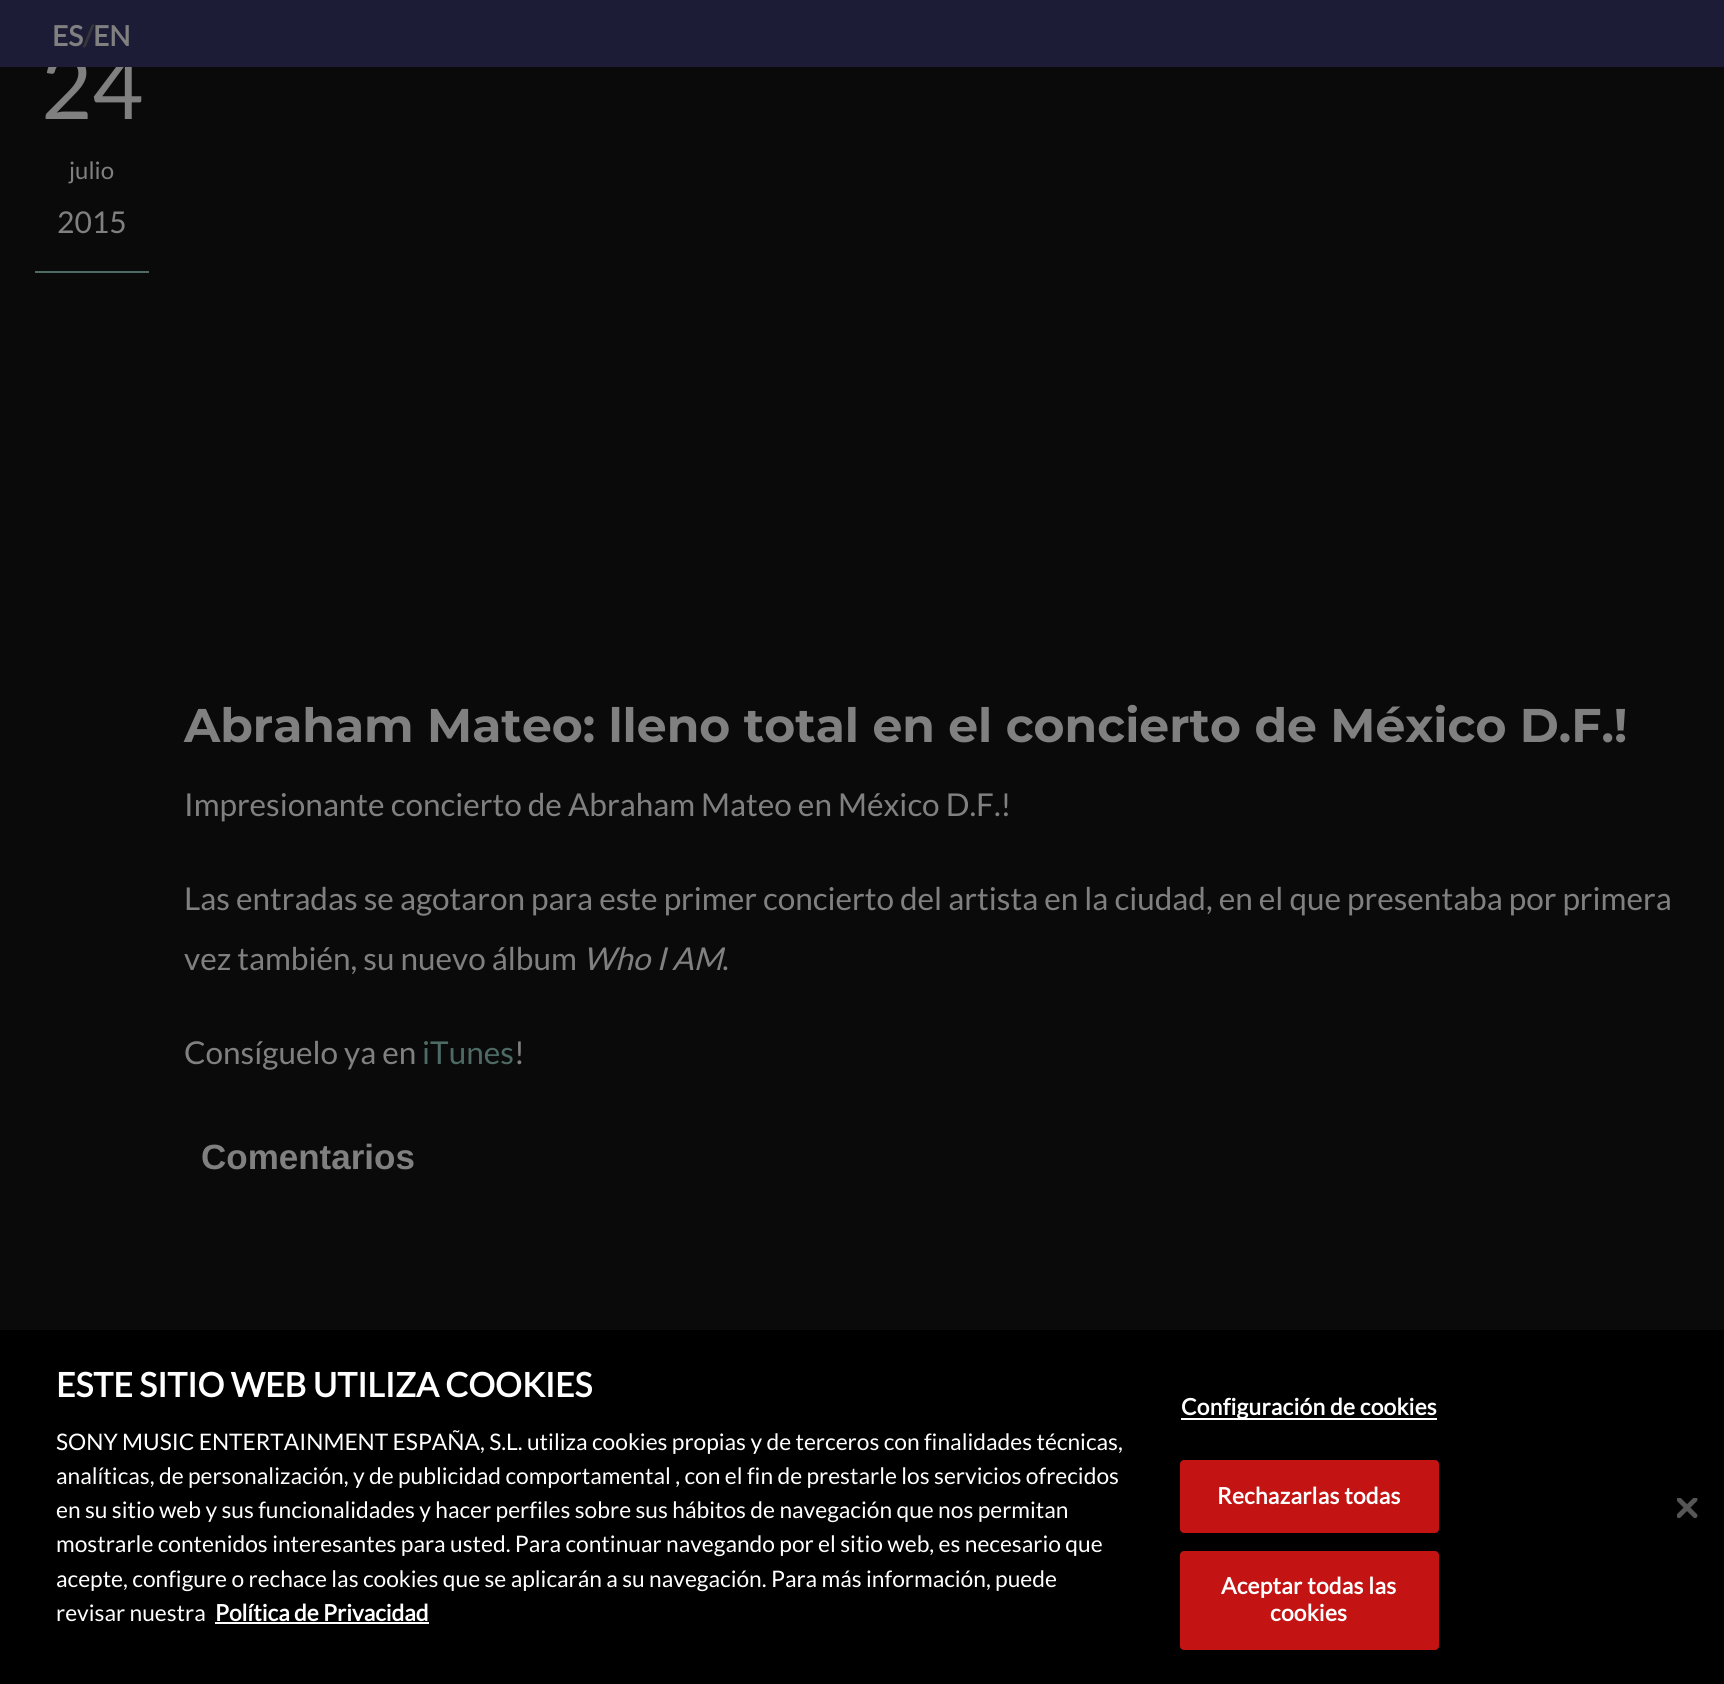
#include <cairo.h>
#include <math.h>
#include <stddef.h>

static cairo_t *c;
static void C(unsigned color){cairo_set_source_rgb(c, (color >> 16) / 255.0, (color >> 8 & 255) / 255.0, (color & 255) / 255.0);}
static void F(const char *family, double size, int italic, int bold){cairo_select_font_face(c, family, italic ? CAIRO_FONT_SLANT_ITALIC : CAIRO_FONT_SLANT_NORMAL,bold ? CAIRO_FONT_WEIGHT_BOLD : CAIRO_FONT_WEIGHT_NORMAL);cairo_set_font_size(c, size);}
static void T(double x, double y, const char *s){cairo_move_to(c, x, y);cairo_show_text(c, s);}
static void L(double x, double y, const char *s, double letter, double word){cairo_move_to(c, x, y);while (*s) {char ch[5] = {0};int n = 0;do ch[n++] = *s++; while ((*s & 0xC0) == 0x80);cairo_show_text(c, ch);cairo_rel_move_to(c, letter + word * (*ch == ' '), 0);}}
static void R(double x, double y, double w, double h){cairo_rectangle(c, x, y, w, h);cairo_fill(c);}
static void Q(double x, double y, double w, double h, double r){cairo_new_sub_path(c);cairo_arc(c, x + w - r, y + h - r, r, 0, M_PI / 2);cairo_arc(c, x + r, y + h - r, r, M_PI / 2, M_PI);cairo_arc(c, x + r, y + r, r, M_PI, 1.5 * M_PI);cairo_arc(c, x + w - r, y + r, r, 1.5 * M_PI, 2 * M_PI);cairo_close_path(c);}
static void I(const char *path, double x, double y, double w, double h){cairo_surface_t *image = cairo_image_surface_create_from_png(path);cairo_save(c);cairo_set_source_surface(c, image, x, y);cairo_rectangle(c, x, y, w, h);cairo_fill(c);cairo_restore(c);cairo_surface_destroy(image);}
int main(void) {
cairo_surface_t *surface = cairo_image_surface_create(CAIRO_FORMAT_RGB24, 1724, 1684);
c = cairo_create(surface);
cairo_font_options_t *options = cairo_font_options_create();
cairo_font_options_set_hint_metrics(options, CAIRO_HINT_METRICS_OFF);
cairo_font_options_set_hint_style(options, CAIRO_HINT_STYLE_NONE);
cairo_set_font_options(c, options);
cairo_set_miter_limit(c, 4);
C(0x0a0a0a);
cairo_paint(c);
F("Lato",88,0,0);
C(0x808080);
T(41,119,"24");
C(0x1c1c37);
R(0,0,1724,67);
F("Lato",28,0,1);
C(0x808080);
T(52,46,"ES");
C(0x373737);
T(83,46,"/");
C(0x808080);
T(93,46,"EN");
C(0x4d6a65);
R(35,271,114,2);
F("Lato",24,0,0);
C(0x808080);
T(69,179,"julio");
F("Lato",30,0,0);
T(57,233,"2015");
F("Montserrat",47.25,0,1);
T(184,742,"Abraham Mateo: lleno total en el concierto de México D.F.!");
F("Lato",31.5,0,0);
T(184,816,"Impresionante concierto de Abraham Mateo en México D.F.!");
T(184,910,"Las entradas se agotaron para este primer concierto del artista en la ciudad, en el que presentaba por primera");
T(184,970,"vez también, su nuevo álbum");
F("Lato",31.5,1,0);
T(583,970,"Who I AM");
F("Lato",31.5,0,0);
T(722,970,".");
T(184,1064,"Consíguelo ya en");
C(0x4d6a65);
T(422,1064,"iTunes");
C(0x808080);
T(514,1064,"!");
F("Liberation Sans",35,0,1);
T(201,1169,"Comentarios");
C(0x000000);
R(0,1330,1724,354);
F("Lato",33.6,0,1);
C(0xffffff);
T(56,1397,"ESTE SITIO WEB UTILIZA COOKIES");
F("Lato",22.75,0,0);
T(56,1450,"SONY MUSIC ENTERTAINMENT ESPAÑA, S.L. utiliza cookies propias y de terceros con finalidades técnicas,");
T(56,1484,"analíticas, de personalización, y de publicidad comportamental , con el fin de prestarle los servicios ofrecidos");
T(56,1518,"en su sitio web y sus funcionalidades y hacer perfiles sobre sus hábitos de navegación que nos permitan");
T(56,1552,"mostrarle contenidos interesantes para usted. Para continuar navegando por el sitio web, es necesario que");
T(56,1587,"acepte, configure o rechace las cookies que se aplicarán a su navegación. Para más información, puede");
T(56,1621,"revisar nuestra");
F("Lato",22.75,0,1);
T(215,1621,"Política de Privacidad");
R(215,1622,214,2);
R(1181,1418,256,2);
L(1181,1415,"Configuración de cookies",.25,0);
C(0xc31313);
Q(1181,1461,257,71,3);
cairo_fill_preserve(c);
cairo_stroke(c);
C(0xffffff);
L(1217,1504,"Rechazarlas todas",.25,0);
C(0xc31313);
Q(1181,1552,257,97,3);
cairo_fill_preserve(c);
cairo_stroke(c);
C(0xffffff);
L(1221,1594,"Aceptar todas las",.25,0);
L(1270,1621,"cookies",.25,0);
I("1.png",1677,1498,21,21);
cairo_surface_write_to_png(surface, "o.png");
cairo_font_options_destroy(options);
cairo_destroy(c);
cairo_surface_destroy(surface);
return 0;
}
